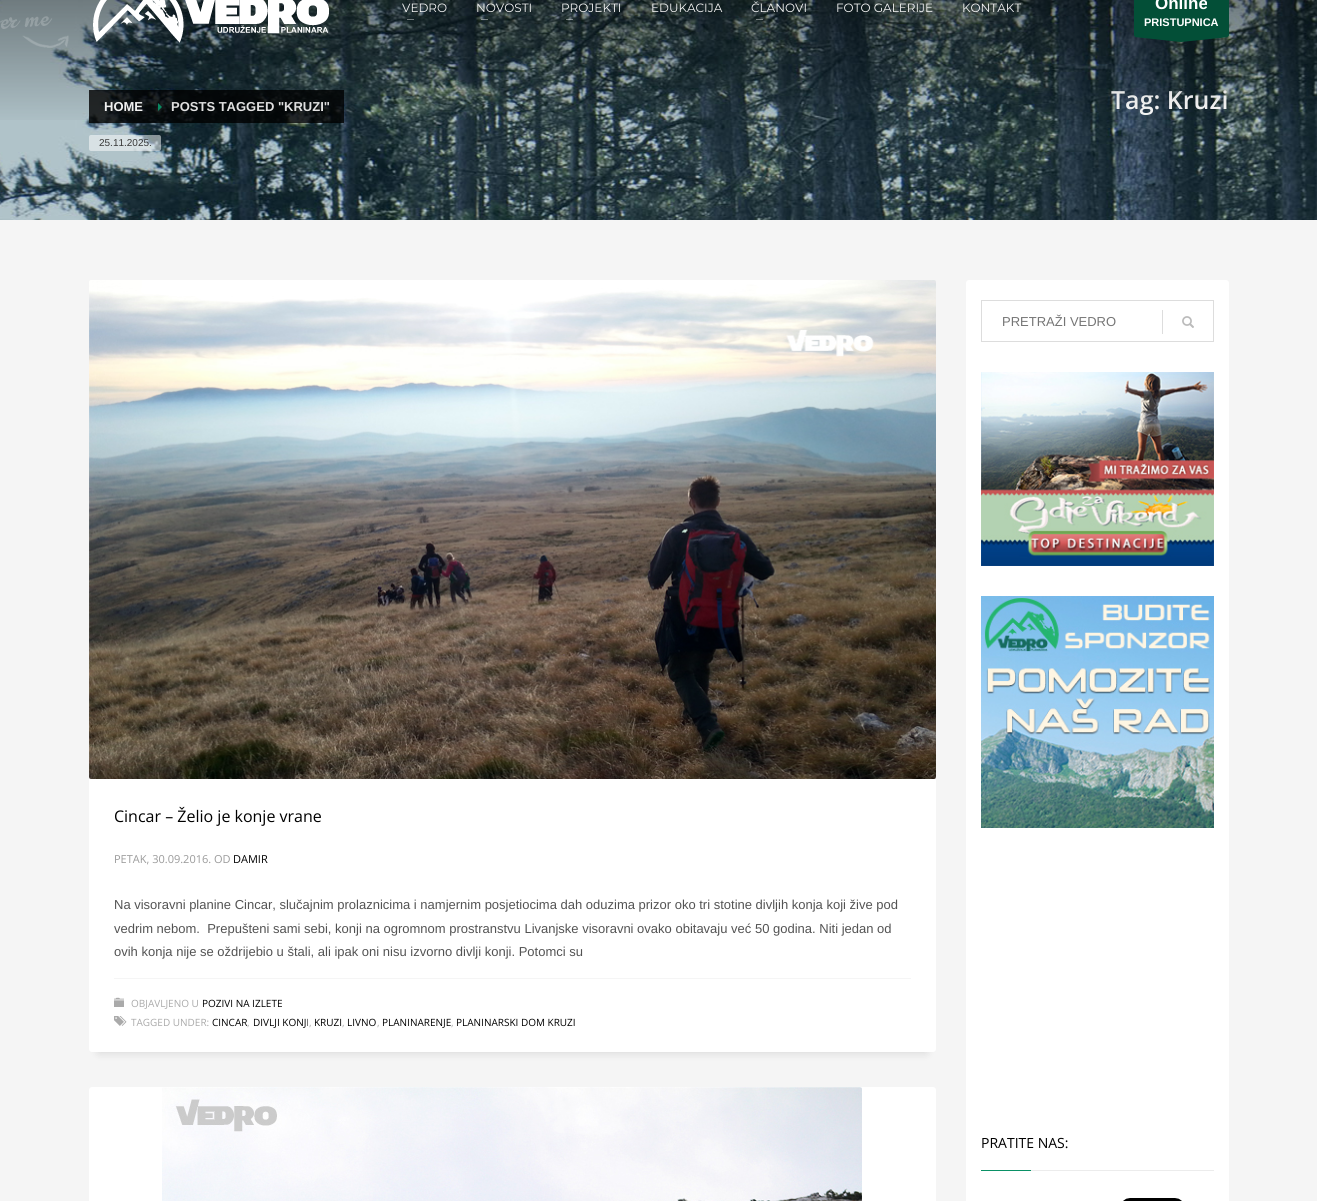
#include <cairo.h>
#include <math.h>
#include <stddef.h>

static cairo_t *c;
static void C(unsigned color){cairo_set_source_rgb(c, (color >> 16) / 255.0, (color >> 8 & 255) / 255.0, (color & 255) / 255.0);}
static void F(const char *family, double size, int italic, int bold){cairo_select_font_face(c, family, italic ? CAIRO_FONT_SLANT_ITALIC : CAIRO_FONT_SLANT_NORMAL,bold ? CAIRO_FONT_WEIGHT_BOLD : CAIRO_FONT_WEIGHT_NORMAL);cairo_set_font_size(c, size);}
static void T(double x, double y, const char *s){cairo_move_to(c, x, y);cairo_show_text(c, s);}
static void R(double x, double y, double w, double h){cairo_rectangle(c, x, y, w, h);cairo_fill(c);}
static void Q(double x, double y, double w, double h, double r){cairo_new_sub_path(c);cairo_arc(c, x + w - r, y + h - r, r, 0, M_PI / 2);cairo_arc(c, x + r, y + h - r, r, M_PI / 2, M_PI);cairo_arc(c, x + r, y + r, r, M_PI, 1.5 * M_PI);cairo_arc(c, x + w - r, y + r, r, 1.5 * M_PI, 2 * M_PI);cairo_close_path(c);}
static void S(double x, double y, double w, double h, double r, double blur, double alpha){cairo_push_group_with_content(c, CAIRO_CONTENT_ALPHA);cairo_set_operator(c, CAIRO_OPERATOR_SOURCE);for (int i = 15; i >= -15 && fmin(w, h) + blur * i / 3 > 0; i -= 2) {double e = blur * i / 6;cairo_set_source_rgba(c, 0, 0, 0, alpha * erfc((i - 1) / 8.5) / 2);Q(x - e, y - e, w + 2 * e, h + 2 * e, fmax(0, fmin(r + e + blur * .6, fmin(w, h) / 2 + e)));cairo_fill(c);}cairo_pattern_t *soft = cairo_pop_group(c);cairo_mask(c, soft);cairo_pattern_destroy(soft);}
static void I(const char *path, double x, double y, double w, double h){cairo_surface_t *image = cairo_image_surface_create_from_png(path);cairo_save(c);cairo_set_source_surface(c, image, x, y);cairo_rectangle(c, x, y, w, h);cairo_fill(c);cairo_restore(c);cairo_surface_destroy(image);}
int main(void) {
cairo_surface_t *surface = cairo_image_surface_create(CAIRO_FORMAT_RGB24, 1317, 1201);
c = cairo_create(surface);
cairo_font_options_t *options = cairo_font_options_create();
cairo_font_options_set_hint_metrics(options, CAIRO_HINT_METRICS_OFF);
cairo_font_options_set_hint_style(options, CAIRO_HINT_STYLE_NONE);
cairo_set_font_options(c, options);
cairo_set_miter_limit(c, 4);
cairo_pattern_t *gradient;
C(0xf5f5f5);
cairo_paint(c);
I("3.png",0,0,1317,220);
cairo_set_source_rgba(c,0,0,0,0.8);
R(89,90,59,33);
F("Liberation Sans",13,0,1);
C(0xffffff);
T(104,111,"HOME");
cairo_set_source_rgba(c,0,0,0,0.8);
R(148,90,196,33);
C(0x0a9166);
cairo_new_path(c);
cairo_move_to(c,158,111);
cairo_line_to(c,158,103);
cairo_line_to(c,162,107);
cairo_close_path(c);
cairo_fill(c);
C(0xeeeeee);
T(171,111,"POSTS TAGGED \"KRUZI\"");
F("Open Sans SemiBold",25,0,0);
C(0xffffff);
T(1111,109,"Tag: Kruzi");
gradient = cairo_pattern_create_linear(659,-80,659,127);
cairo_pattern_add_color_stop_rgba(gradient,0,0,0,0,.6);
cairo_pattern_add_color_stop_rgba(gradient,1,0,0,0,0);
cairo_set_source(c,gradient);
cairo_pattern_destroy(gradient);
R(0,0,1317,120);
I("1.png",0,16,69,32);
I("2.png",93,0,236,43);
F("Montserrat",12,0,0);
C(0xf5f5f5);
T(402,12,"VEDRO");
cairo_set_source_rgba(c,1,1,1,0.4);
R(407,19,7,1);
C(0xf5f5f5);
T(476,12,"NOVOSTI");
cairo_set_source_rgba(c,1,1,1,0.4);
R(481,19,7,1);
C(0xf5f5f5);
T(561,12,"PROJEKTI");
cairo_set_source_rgba(c,1,1,1,0.4);
R(566,19,7,1);
C(0xf5f5f5);
T(651,12,"EDUKACIJA");
T(751,12,"ČLANOVI");
cairo_set_source_rgba(c,1,1,1,0.4);
R(756,19,7,1);
C(0xf5f5f5);
T(836,12,"FOTO GALERIJE");
T(962,12,"KONTAKT");
C(0x034f37);
Q(1134,-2,95,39,2);
cairo_fill(c);
F("Liberation Sans",17,0,1);
C(0xffffff);
T(1155,9,"Online");
F("Liberation Sans",11,0,1);
T(1144,26,"PRISTUPNICA");
C(0x034f37);
cairo_set_fill_rule(c,CAIRO_FILL_RULE_EVEN_ODD);
cairo_new_path(c);
cairo_move_to(c,1229,37);
cairo_line_to(c,1181,42);
cairo_line_to(c,1134,37);
cairo_close_path(c);
cairo_fill(c);
cairo_set_source_rgba(c,1,1,1,0.5);
Q(89,135,72,16,2);
cairo_fill(c);
F("Liberation Sans",10,0,0);
C(0x383838);
T(99,146,"25.11.2025.");
C(0x000000);
S(99,300,827,752,0,5,.15);
C(0xffffff);
Q(89,280,847,772,3);
cairo_fill(c);
I("4.png",89,280,847,499);
F("Open Sans",16,0,0);
C(0x000000);
T(114,822,"Cincar – Želio je konje vrane");
F("Open Sans",11,0,0);
C(0x9a9a9a);
T(114,863,"PETAK, 30.09.2016. OD");
C(0x000000);
T(233,863,"DAMIR");
C(0xf5f5f5);
R(114,978,797,1);
F("Liberation Sans",13,0,0);
C(0x535353);
T(114,909,"Na visoravni planine Cincar, slučajnim prolaznicima i namjernim posjetiocima dah oduzima prizor oko tri stotine divljih konja koji žive pod");
T(114,933,"vedrim nebom.  Prepušteni sami sebi, konji na ogromnom prostranstvu Livanjske visoravni ovako obitavaju već 50 godina. Niti jedan od");
T(114,956,"ovih konja nije se oždrijebio u štali, ali ipak oni nisu izvorno divlji konji. Potomci su");
I("5.png",114,997,10,10);
F("Open Sans",10,0,0);
C(0xaaaaaa);
T(131,1007,"OBJAVLJENO U");
C(0x000000);
T(202,1007,"POZIVI NA IZLETE");
I("6.png",114,1016,13,10);
C(0xaaaaaa);
T(131,1026,"TAGGED UNDER:");
C(0x000000);
T(212,1026,"CINCAR");
C(0xaaaaaa);
T(247,1026,",");
C(0x000000);
T(253,1026,"DIVLJI KONJI");
C(0xaaaaaa);
T(309,1026,",");
C(0x000000);
T(314,1026,"KRUZI");
C(0xaaaaaa);
T(342,1026,",");
C(0x000000);
T(347,1026,"LIVNO");
C(0xaaaaaa);
T(377,1026,",");
C(0x000000);
T(382,1026,"PLANINARENJE");
C(0xaaaaaa);
T(451,1026,",");
C(0x000000);
T(456,1026,"PLANINARSKI DOM KRUZI");
C(0xffffff);
Q(89,1087,847,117,3);
cairo_fill(c);
I("7.png",162,1087,700,114);
Q(966,280,263,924,3);
cairo_fill(c);
cairo_rectangle(c,981.5,300.5,232,41);
C(0xdddddd);
cairo_set_line_width(c,1);
cairo_stroke(c);
F("Liberation Sans",13,0,0);
C(0x757575);
T(1002,326,"PRETRAŽI VEDRO");
C(0xdddddd);
R(1162,310,1,24);
I("8.png",1182,316,12,12);
I("9.png",981,372,233,194);
I("10.png",981,596,233,232);
F("Open Sans",14,0,0);
C(0x000000);
T(981,1148,"PRATITE NAS:");
C(0x0a9166);
R(981,1170,50,1);
C(0xececec);
R(1031,1170,183,1);
I("11.png",1123,1198,59,3);
cairo_surface_write_to_png(surface, "o.png");
cairo_font_options_destroy(options);
cairo_destroy(c);
cairo_surface_destroy(surface);
return 0;
}
